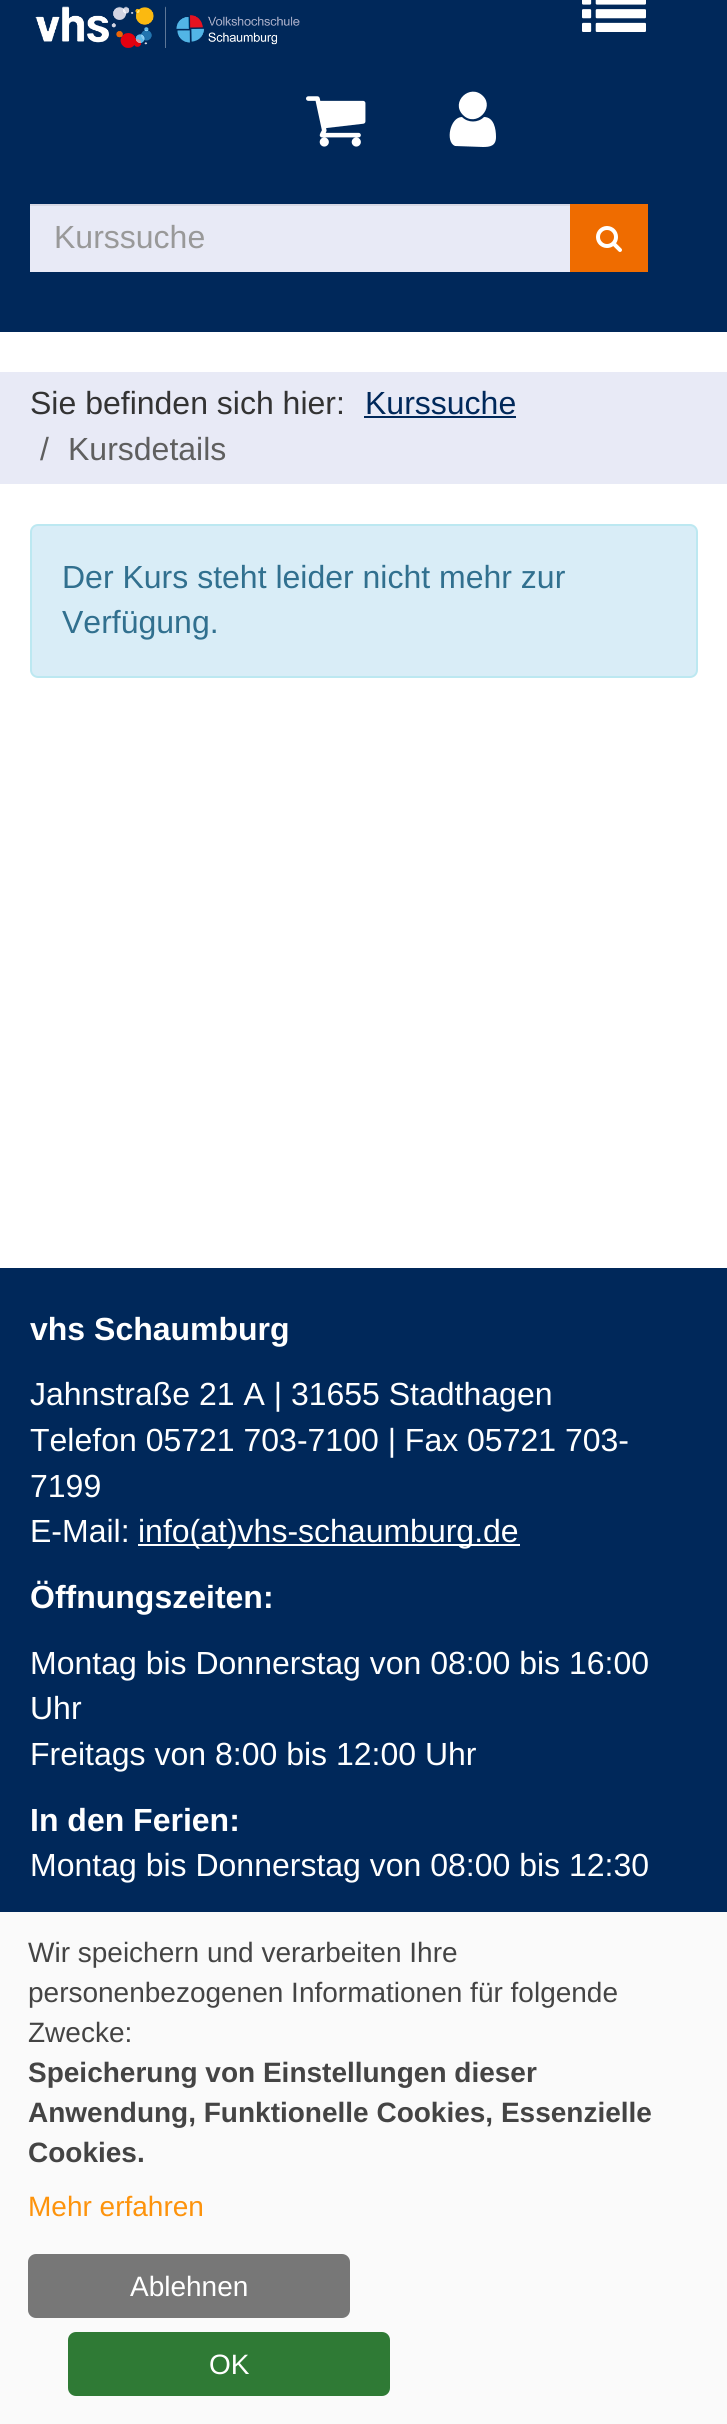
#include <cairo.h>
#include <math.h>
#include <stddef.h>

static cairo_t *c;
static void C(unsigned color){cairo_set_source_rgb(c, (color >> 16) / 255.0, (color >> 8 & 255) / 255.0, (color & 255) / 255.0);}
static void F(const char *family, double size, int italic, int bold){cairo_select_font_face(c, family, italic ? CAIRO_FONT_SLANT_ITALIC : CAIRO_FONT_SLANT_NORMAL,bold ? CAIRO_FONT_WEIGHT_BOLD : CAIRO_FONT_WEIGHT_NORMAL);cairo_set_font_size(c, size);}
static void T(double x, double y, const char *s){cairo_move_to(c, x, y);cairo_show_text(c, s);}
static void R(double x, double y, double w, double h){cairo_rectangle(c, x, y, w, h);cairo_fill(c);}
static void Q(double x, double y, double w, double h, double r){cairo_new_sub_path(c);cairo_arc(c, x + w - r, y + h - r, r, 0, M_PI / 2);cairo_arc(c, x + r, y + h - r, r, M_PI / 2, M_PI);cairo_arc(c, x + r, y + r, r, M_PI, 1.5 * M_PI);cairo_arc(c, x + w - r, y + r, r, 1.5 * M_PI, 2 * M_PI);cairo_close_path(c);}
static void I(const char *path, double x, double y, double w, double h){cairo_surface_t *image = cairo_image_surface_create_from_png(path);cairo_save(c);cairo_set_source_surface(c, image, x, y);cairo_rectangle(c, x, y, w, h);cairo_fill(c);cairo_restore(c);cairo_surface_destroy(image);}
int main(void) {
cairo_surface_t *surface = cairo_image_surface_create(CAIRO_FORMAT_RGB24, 727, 2424);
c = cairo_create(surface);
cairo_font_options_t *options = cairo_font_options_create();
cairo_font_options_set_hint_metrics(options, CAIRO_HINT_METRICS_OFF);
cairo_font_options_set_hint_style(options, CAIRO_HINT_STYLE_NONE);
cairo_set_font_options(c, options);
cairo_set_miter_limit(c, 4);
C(0xffffff);
cairo_paint(c);
C(0x00285a);
R(0,0,727,332);
I("1.png",35,6,265,42);
I("2.png",582,0,64,32);
I("3.png",306,96,60,51);
C(0xffffff);
cairo_new_path(c);
cairo_move_to(c,496,137);
cairo_curve_to(c,496,146,490,147,483,147);
cairo_line_to(c,455,146);
cairo_curve_to(c,445,142,450,117,462,117);
cairo_curve_to(c,468,123,478,123,484,117);
cairo_curve_to(c,494,117,496,129,496,137);
cairo_close_path(c);
cairo_move_to(c,483,96);
cairo_curve_to(c,495,108,476,128,463,115);
cairo_curve_to(c,450,102,470,83,483,96);
cairo_close_path(c);
cairo_fill(c);
C(0xe8eaf6);
R(30,206,540,66);
C(0xd7d8e4);
R(30,204,542,2);
F("Liberation Sans",32,0,0);
C(0x999999);
T(54,248,"Kurssuche");
C(0xef6c00);
R(570,204,78,68);
I("4.png",596,226,26,26);
C(0xe8eaf6);
R(0,372,727,112);
C(0x333333);
T(30,414,"Sie befinden sich hier:");
C(0x00285a);
T(365,414,"Kurssuche");
R(364,416,152,2);
C(0x5f5f5f);
T(40,460,"/");
T(68,460,"Kursdetails");
C(0xd9edf7);
Q(31,525,666,152,7);
cairo_fill_preserve(c);
C(0xbce8f1);
cairo_stroke(c);
C(0x31708f);
T(62,588,"Der Kurs steht leider nicht mehr zur");
T(62,633,"Verfügung.");
C(0x00285a);
R(0,1268,727,644);
F("Liberation Sans",32,0,1);
C(0xffffff);
T(30,1340,"vhs Schaumburg");
F("Liberation Sans",32,0,0);
T(30,1405,"Jahnstraße 21 A | 31655 Stadthagen");
T(30,1451,"Telefon 05721 703-7100 | Fax 05721 703-");
T(30,1497,"7199");
T(30,1542,"E-Mail:");
R(138,1544,382,2);
T(138,1542,"info(at)vhs-schaumburg.de");
F("Liberation Sans",32,0,1);
T(30,1608,"Öffnungszeiten:");
F("Liberation Sans",32,0,0);
T(30,1674,"Montag bis Donnerstag von 08:00 bis 16:00");
T(30,1719,"Uhr");
T(30,1765,"Freitags von 8:00 bis 12:00 Uhr");
F("Liberation Sans",32,0,1);
T(30,1831,"In den Ferien:");
F("Liberation Sans",32,0,0);
T(30,1876,"Montag bis Donnerstag von 08:00 bis 12:30");
C(0xfafafa);
R(0,1912,727,512);
F("Liberation Sans",28,0,0);
C(0x444444);
T(28,1962,"Wir speichern und verarbeiten Ihre");
T(28,2002,"personenbezogenen Informationen für folgende");
T(28,2042,"Zwecke:");
F("Liberation Sans",28,0,1);
T(28,2082,"Speicherung von Einstellungen dieser");
T(28,2122,"Anwendung, Funktionelle Cookies, Essenzielle");
T(28,2162,"Cookies.");
F("Liberation Sans",28,0,0);
C(0xfd930c);
T(28,2216,"Mehr erfahren");
C(0x777777);
Q(28,2254,322,64,8);
cairo_fill(c);
C(0xffffff);
T(130,2296,"Ablehnen");
C(0x2f7a35);
Q(68,2332,322,64,8);
cairo_fill(c);
C(0xffffff);
T(209,2374,"OK");
cairo_surface_write_to_png(surface, "o.png");
cairo_font_options_destroy(options);
cairo_destroy(c);
cairo_surface_destroy(surface);
return 0;
}
